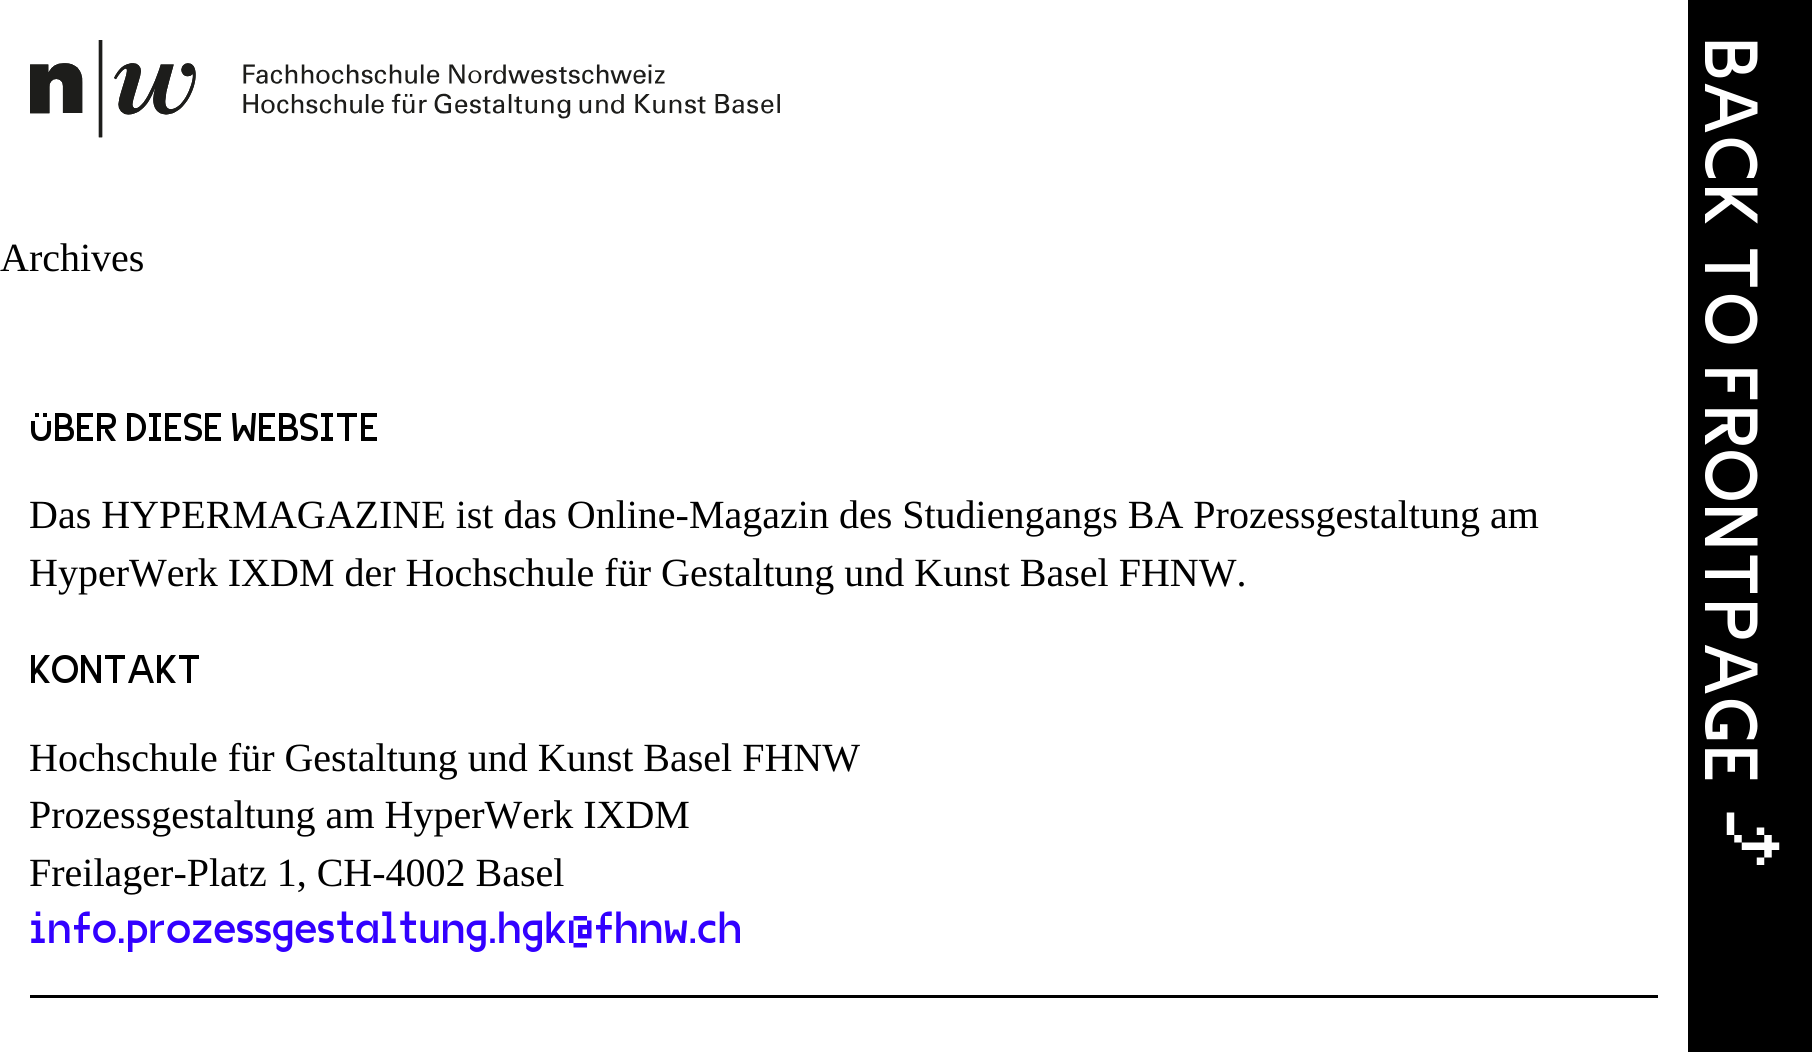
#include <cairo.h>
#include <math.h>
#include <stddef.h>

static cairo_t *c;
static void C(unsigned color){cairo_set_source_rgb(c, (color >> 16) / 255.0, (color >> 8 & 255) / 255.0, (color & 255) / 255.0);}
static void F(const char *family, double size, int italic, int bold){cairo_select_font_face(c, family, italic ? CAIRO_FONT_SLANT_ITALIC : CAIRO_FONT_SLANT_NORMAL,bold ? CAIRO_FONT_WEIGHT_BOLD : CAIRO_FONT_WEIGHT_NORMAL);cairo_set_font_size(c, size);}
static void T(double x, double y, const char *s){cairo_move_to(c, x, y);cairo_show_text(c, s);}
static void L(double x, double y, const char *s, double letter, double word){cairo_move_to(c, x, y);while (*s) {char ch[5] = {0};int n = 0;do ch[n++] = *s++; while ((*s & 0xC0) == 0x80);cairo_show_text(c, ch);cairo_rel_move_to(c, letter + word * (*ch == ' '), 0);}}
static void R(double x, double y, double w, double h){cairo_rectangle(c, x, y, w, h);cairo_fill(c);}
static void I(const char *path, double x, double y, double w, double h){cairo_surface_t *image = cairo_image_surface_create_from_png(path);cairo_save(c);cairo_set_source_surface(c, image, x, y);cairo_rectangle(c, x, y, w, h);cairo_fill(c);cairo_restore(c);cairo_surface_destroy(image);}
int main(void) {
cairo_surface_t *surface = cairo_image_surface_create(CAIRO_FORMAT_RGB24, 1812, 1052);
c = cairo_create(surface);
cairo_font_options_t *options = cairo_font_options_create();
cairo_font_options_set_hint_metrics(options, CAIRO_HINT_METRICS_OFF);
cairo_font_options_set_hint_style(options, CAIRO_HINT_STYLE_NONE);
cairo_set_font_options(c, options);
cairo_set_miter_limit(c, 4);
C(0xffffff);
cairo_paint(c);
F("Liberation Serif",40,0,0);
C(0x000000);
T(0,271,"Archives");
F("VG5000",40,0,0);
T(29,441,"ÜBER DIESE WEBSITE");
F("Liberation Serif",40,0,0);
T(29,528,"Das HYPERMAGAZINE ist das Online-Magazin des Studiengangs BA Prozessgestaltung am");
T(29,586,"HyperWerk IXDM der Hochschule für Gestaltung und Kunst Basel FHNW.");
F("VG5000",40,0,0);
T(29,683,"KONTAKT");
F("Liberation Serif",40,0,0);
T(29,771,"Hochschule für Gestaltung und Kunst Basel FHNW");
T(29,828,"Prozessgestaltung am HyperWerk IXDM");
T(29,886,"Freilager-Platz 1, CH-4002 Basel");
F("VG5000",45,0,0);
C(0x3200ff);
T(29,943,"info.prozessgestaltung.hgk@fhnw.ch");
C(0x000000);
R(30,995,1628,3);
I("1.png",30,40,750,98);
R(1688,0,124,1052);
F("VG5000",75,0,0);
C(0xffffff);
cairo_save(c);
cairo_translate(c,1705,38);
cairo_rotate(c,90 * M_PI / 180);
L(0,0,"BACK TO FRONTPAGE",2.5,0);
cairo_restore(c);
L(1723,865,"⤷",2.5,0);
cairo_surface_write_to_png(surface, "o.png");
cairo_font_options_destroy(options);
cairo_destroy(c);
cairo_surface_destroy(surface);
return 0;
}
